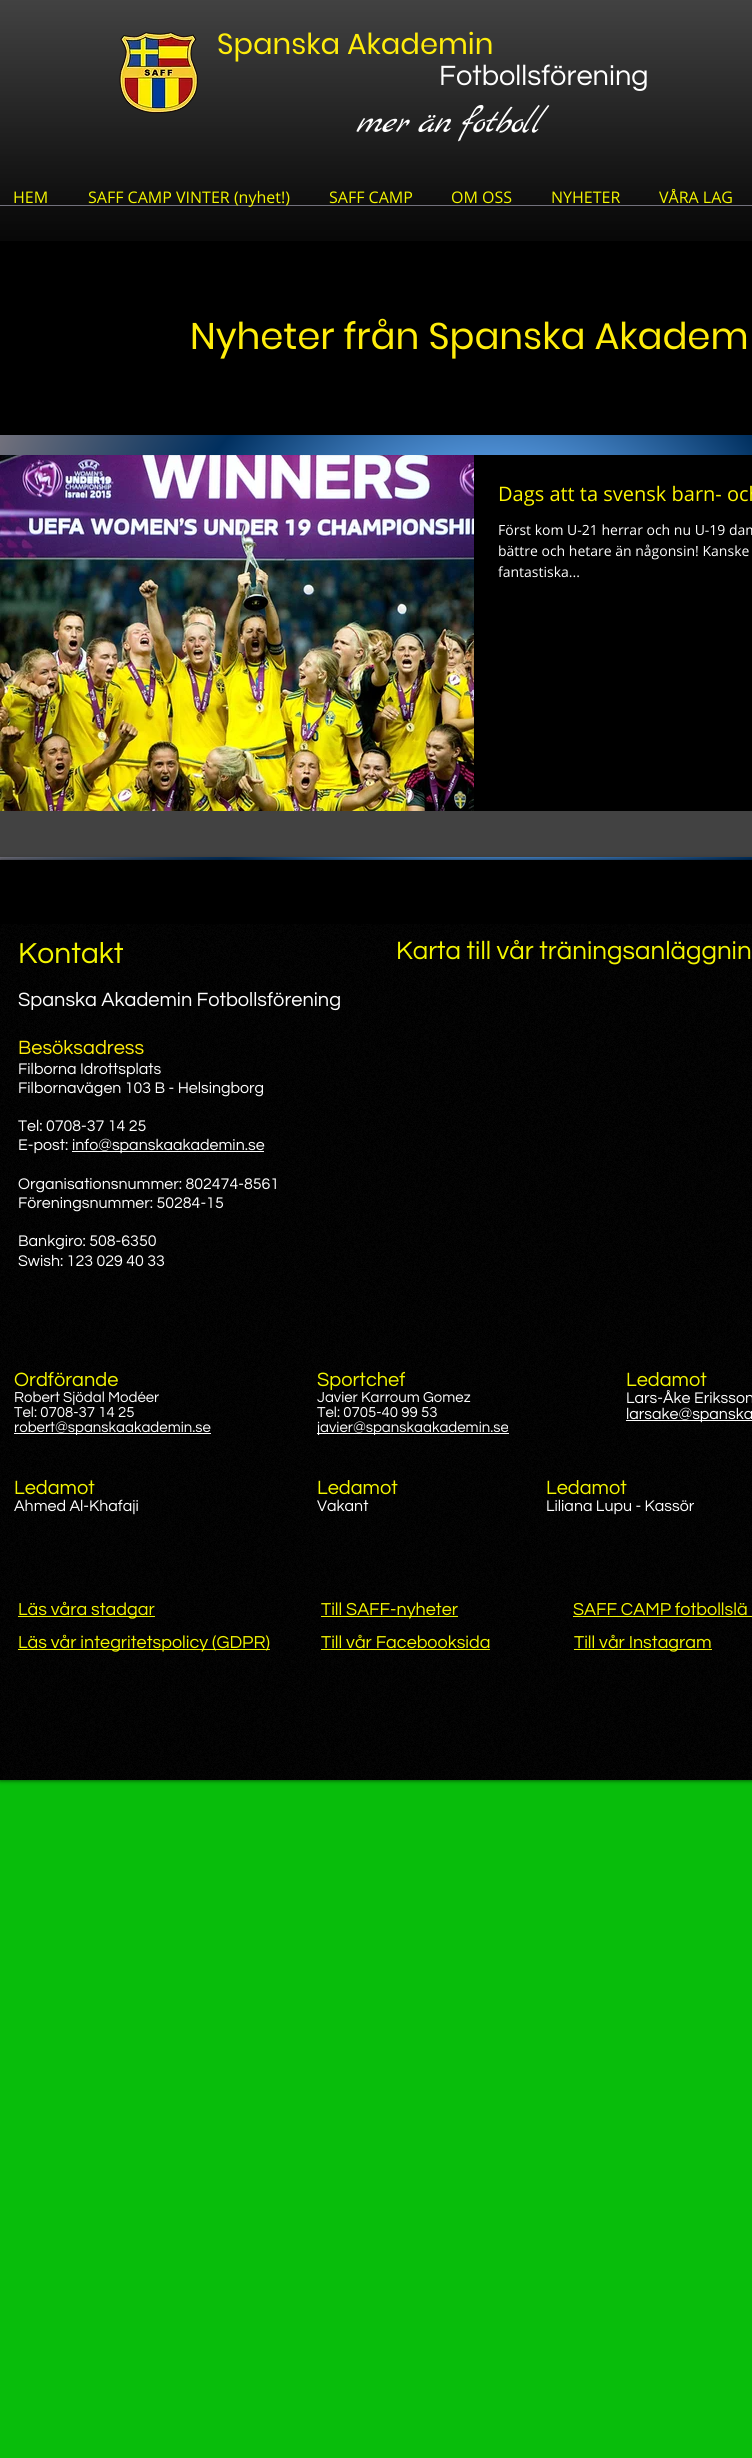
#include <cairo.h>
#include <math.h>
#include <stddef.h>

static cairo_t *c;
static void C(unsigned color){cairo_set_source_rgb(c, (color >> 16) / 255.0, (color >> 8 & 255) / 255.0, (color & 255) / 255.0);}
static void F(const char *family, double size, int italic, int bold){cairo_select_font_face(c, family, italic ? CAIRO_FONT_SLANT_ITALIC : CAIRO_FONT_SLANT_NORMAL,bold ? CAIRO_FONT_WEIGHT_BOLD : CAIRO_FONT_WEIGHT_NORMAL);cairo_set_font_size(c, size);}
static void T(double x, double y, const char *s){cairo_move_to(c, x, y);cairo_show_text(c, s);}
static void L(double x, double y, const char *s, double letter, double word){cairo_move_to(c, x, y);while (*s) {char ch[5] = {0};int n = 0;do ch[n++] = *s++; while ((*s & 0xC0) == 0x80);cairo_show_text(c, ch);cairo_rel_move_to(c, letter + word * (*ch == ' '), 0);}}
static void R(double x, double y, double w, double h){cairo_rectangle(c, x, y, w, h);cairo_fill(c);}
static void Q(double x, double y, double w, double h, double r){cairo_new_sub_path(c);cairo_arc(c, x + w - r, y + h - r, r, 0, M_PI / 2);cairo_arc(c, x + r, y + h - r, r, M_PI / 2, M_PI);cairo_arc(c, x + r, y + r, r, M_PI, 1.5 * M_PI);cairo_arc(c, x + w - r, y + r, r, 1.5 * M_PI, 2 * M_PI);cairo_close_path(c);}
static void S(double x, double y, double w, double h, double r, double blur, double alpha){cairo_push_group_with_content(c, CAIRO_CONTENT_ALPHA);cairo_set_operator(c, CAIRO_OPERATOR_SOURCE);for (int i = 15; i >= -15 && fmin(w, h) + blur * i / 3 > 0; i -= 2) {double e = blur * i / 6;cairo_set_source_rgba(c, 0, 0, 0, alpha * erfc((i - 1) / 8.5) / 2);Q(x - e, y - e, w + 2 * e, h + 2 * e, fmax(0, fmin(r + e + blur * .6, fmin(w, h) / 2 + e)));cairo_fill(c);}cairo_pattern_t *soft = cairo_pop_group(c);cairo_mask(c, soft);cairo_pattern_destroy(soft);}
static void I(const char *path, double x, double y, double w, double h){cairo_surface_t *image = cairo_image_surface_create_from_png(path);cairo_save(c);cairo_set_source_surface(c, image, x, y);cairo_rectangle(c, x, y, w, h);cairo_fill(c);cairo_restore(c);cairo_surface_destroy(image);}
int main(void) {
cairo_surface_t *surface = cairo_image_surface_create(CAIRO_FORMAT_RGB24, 752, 2458);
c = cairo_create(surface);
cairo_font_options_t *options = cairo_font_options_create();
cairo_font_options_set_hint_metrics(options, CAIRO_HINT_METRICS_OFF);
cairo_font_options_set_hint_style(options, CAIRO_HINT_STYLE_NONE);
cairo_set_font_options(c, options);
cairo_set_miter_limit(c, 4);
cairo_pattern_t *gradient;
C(0x08bd0b);
cairo_paint(c);
C(0x000000);
R(0,0,752,435);
I("1.png",0,0,752,241);
I("2.png",119,32,79,82);
F("Poppins",29,0,0);
C(0xffed0b);
T(217,54,"Spanska Akademin");
F("Questrial",29,0,0);
C(0xffffff);
T(439,85,"Fotbollsförening");
F("Marck Script",35,1,0);
T(356,132,"me");
L(395,132,"r",-4,0);
T(417,132,"ä");
L(434,132,"n",-4,0);
T(460,132,"fotboll");
F("Open Sans",16,0,0);
C(0xf4f600);
T(13,203,"HEM");
C(0x72717c);
R(0,205,752,1);
C(0xf4f600);
T(88,203,"SAFF CAMP VINTER (nyhet!)");
T(329,203,"SAFF CAMP");
T(451,203,"OM OSS");
T(551,203,"NYHETER");
T(659,203,"VÅRA LAG");
F("Poppins",37,0,0);
C(0xffed0b);
T(190,349,"Nyheter från Spanska Akadem");
gradient = cairo_pattern_create_radial(490,648,0,490,648,534);
cairo_pattern_add_color_stop_rgba(gradient,0,0.894,0.922,0.988,1);
cairo_pattern_add_color_stop_rgba(gradient,.32,0.345,0.608,0.89,1);
cairo_pattern_add_color_stop_rgba(gradient,.63,0,0.184,0.369,1);
cairo_pattern_add_color_stop_rgba(gradient,1,0.447,0.443,0.486,1);
cairo_set_source(c,gradient);
cairo_pattern_destroy(gradient);
R(0,435,752,425);
C(0x424242);
R(0,811,752,46);
I("3.png",0,455,474,356);
C(0x000000);
R(474,455,278,356);
F("Open Sans",20,0,0);
C(0xfff601);
T(498,501,"Dags att ta svensk barn- och");
F("Open Sans",14,0,0);
C(0xffffff);
T(498,535,"Först kom U-21 herrar och nu U-19 dam");
T(498,556,"bättre och hetare än någonsin! Kanske");
T(498,577,"fantastiska...");
C(0x000000);
S(0,860,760,920,0,2.5,.7);
C(0x000000);
R(0,860,752,920);
I("4.png",0,924,752,856);
F("Questrial",30,0,0);
C(0xf4f600);
T(18,963,"Kontakt");
F("Questrial",26,0,0);
T(396,959,"Karta till vår träningsanläggnin");
F("Questrial",20,0,0);
C(0xffffff);
T(18,1006,"Spanska Akademin Fotbollsförening");
C(0xffed0b);
T(18,1054,"Besöksadress");
F("Questrial",16,0,0);
C(0xffffff);
T(18,1074,"Filborna Idrottsplats");
T(18,1093,"Filbornavägen 103 B - Helsingborg");
T(18,1131,"Tel: 0708-37 14 25");
T(18,1150,"E-post:");
R(72,1151,192,1);
T(72,1150,"info@spanskaakademin.se");
T(18,1189,"Organisationsnummer: 802474-8561");
T(18,1208,"Föreningsnummer: 50284-15");
T(18,1246,"Bankgiro: 508-6350");
T(18,1266,"Swish: 123 029 40 33");
F("Questrial",20,0,0);
C(0xf4f600);
T(14,1386,"Ordförande");
F("Questrial",15,0,0);
C(0xffffff);
T(14,1402,"Robert Sjödal Modéer");
T(14,1417,"Tel: 0708-37 14 25");
R(14,1433,197,1);
T(14,1432,"robert@spanskaakademin.se");
F("Questrial",20,0,0);
C(0xf4f600);
T(317,1386,"Sportchef");
F("Questrial",15,0,0);
C(0xffffff);
T(317,1402,"Javier Karroum Gomez");
T(317,1417,"Tel: 0705-40 99 53");
R(317,1433,192,1);
T(317,1432,"javier@spanskaakademin.se");
F("Questrial",20,0,0);
C(0xf4f600);
T(626,1386,"Ledamot");
F("Questrial",16,0,0);
C(0xffffff);
T(626,1403,"Lars-Åke Eriksson");
R(626,1420,126,1);
T(626,1419,"larsake@spanska");
F("Questrial",20,0,0);
C(0xf4f600);
T(14,1494,"Ledamot");
F("Questrial",16,0,0);
C(0xffffff);
T(14,1511,"Ahmed Al-Khafaji");
F("Questrial",20,0,0);
C(0xf4f600);
T(317,1494,"Ledamot");
F("Questrial",16,0,0);
C(0xffffff);
T(317,1511,"Vakant");
F("Questrial",20,0,0);
C(0xf4f600);
T(546,1494,"Ledamot");
F("Questrial",16,0,0);
C(0xffffff);
T(546,1511,"Liliana Lupu - Kassör");
C(0xf4f600);
R(18,1616,137,1);
F("Questrial",18,0,0);
T(18,1615,"Läs våra stadgar");
R(321,1616,137,1);
T(321,1615,"Till SAFF-nyheter");
T(573,1615,"SAFF CAMP fotbollslä");
R(573,1616,179,1);
R(18,1649,252,1);
T(18,1648,"Läs vår integritetspolicy (GDPR)");
T(321,1648,"Till vår Facebooksida");
R(321,1649,169,1);
R(574,1649,138,1);
T(574,1648,"Till vår Instagram");
cairo_surface_write_to_png(surface, "o.png");
cairo_font_options_destroy(options);
cairo_destroy(c);
cairo_surface_destroy(surface);
return 0;
}
